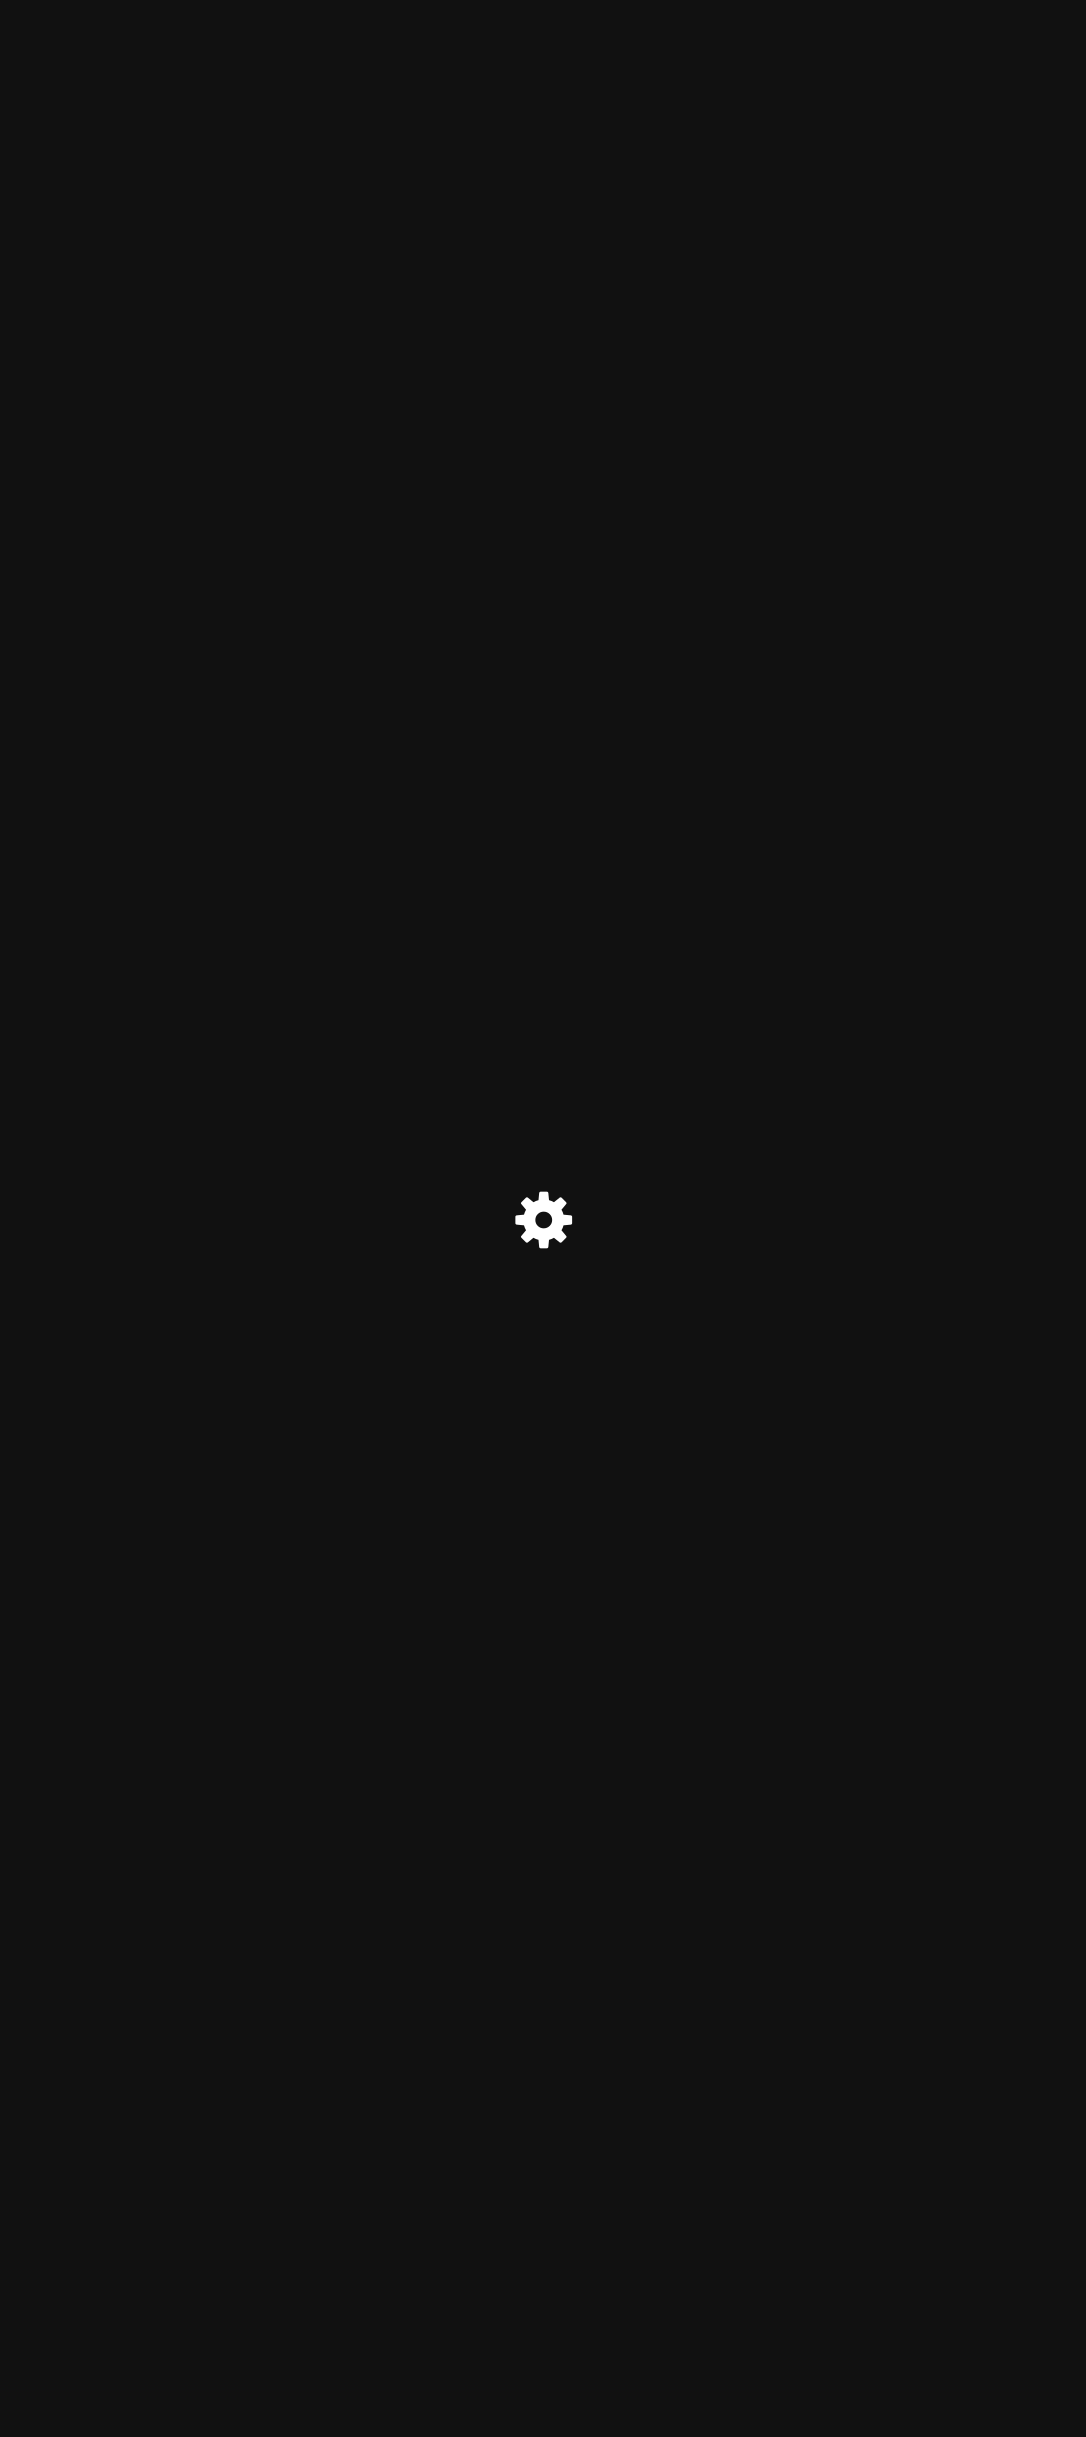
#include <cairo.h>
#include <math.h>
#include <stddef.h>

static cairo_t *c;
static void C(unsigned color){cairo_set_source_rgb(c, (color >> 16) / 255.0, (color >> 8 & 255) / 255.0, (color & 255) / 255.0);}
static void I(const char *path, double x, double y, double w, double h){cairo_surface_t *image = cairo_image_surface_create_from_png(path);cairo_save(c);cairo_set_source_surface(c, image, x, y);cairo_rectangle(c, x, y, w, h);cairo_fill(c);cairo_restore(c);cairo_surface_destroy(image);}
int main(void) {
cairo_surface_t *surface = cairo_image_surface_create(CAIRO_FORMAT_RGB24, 1086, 2437);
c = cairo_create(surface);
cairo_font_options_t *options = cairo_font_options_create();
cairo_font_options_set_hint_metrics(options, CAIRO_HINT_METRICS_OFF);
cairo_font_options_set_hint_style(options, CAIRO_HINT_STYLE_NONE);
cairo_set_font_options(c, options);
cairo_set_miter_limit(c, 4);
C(0x111111);
cairo_paint(c);
I("1.png",515,1191,58,58);
cairo_surface_write_to_png(surface, "o.png");
cairo_font_options_destroy(options);
cairo_destroy(c);
cairo_surface_destroy(surface);
return 0;
}
